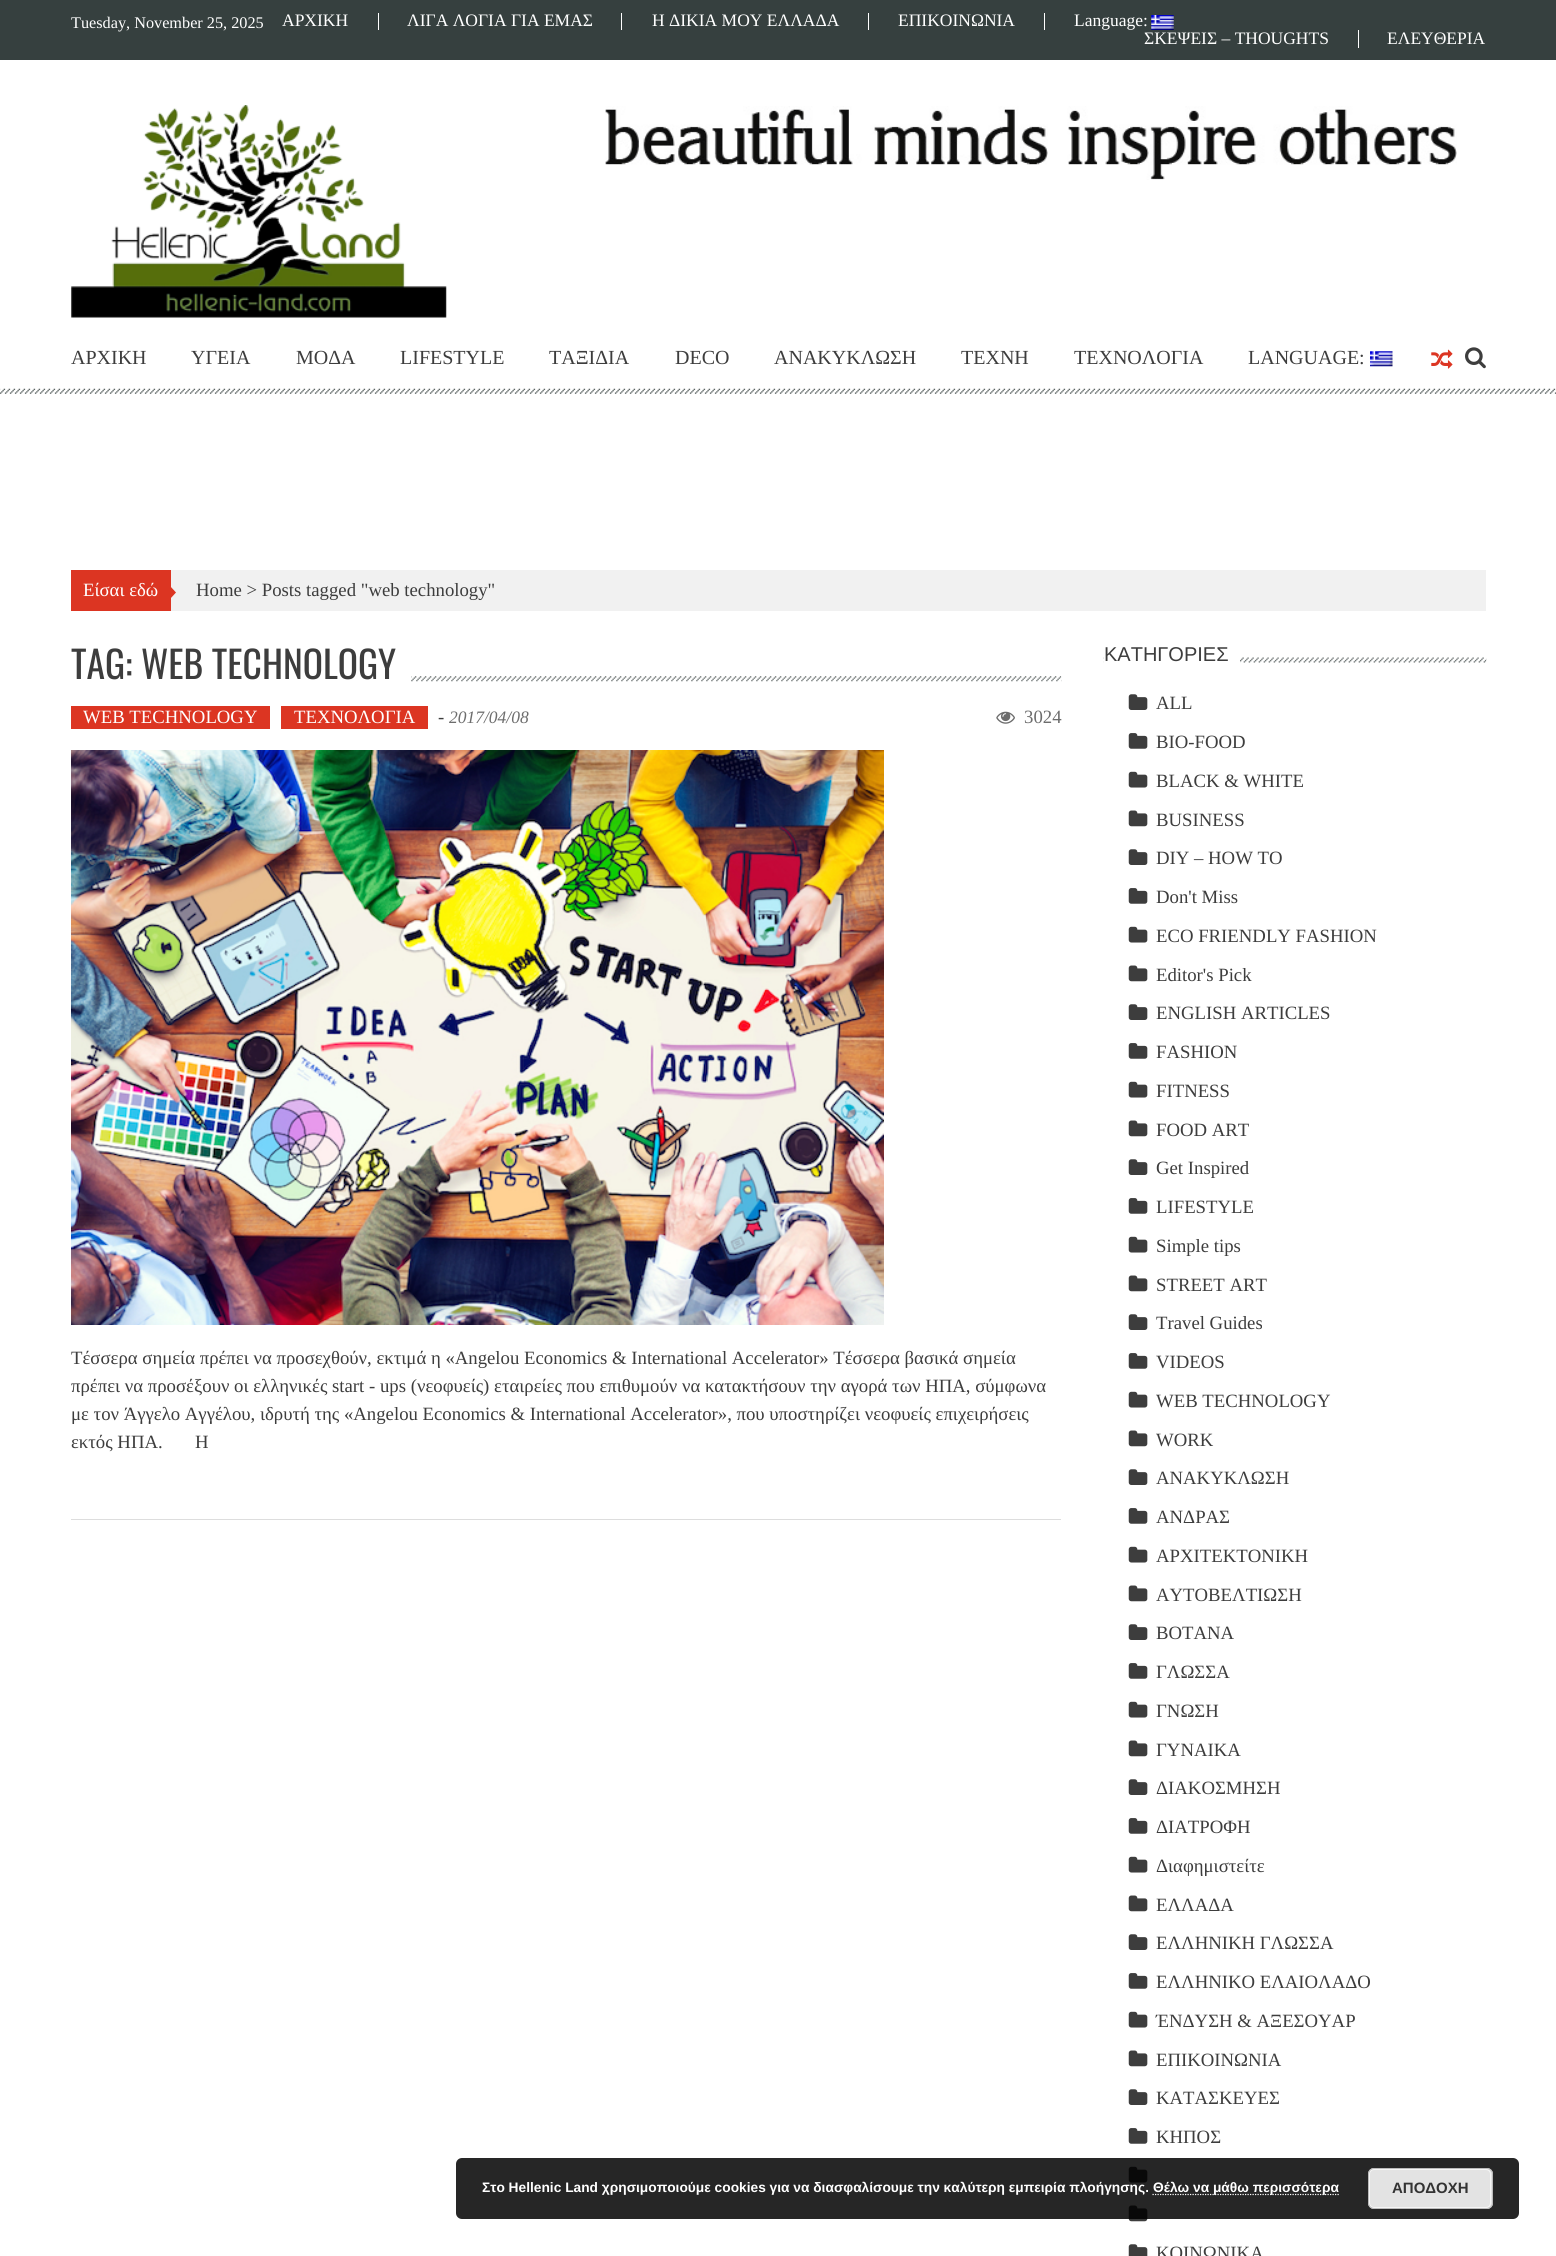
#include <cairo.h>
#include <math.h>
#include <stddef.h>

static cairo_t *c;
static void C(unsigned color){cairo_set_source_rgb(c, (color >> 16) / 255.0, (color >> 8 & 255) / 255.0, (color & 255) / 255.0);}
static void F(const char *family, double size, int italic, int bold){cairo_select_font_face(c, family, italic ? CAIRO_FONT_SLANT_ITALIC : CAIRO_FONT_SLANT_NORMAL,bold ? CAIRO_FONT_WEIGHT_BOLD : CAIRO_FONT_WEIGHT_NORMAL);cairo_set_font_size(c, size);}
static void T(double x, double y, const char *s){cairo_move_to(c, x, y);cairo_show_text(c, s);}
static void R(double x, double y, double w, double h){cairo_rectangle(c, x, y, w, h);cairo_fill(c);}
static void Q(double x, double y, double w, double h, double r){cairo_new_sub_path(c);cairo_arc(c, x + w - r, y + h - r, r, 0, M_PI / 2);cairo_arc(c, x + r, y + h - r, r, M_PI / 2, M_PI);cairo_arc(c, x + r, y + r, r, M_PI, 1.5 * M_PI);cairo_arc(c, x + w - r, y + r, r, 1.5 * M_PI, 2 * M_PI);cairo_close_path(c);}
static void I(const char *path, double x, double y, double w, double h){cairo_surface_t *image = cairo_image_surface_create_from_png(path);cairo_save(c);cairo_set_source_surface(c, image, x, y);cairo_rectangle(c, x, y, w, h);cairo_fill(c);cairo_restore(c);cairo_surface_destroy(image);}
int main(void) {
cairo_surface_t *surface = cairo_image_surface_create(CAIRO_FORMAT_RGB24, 1556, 2256);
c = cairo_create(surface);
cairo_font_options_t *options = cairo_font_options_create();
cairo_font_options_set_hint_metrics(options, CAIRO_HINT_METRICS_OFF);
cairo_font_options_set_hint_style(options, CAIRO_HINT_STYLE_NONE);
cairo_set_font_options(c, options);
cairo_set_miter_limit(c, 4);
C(0xffffff);
cairo_paint(c);
C(0x36403f);
R(0,0,1556,60);
F("Liberation Serif",16.25,0,0);
C(0xffffff);
T(71,28,"Tuesday, November 25, 2025");
F("Liberation Serif",17.5,0,0);
T(282,26,"ΑΡΧΙΚΗ");
R(378,13,1,17);
T(407,26,"ΛΙΓΑ ΛΟΓΙΑ ΓΙΑ ΕΜΑΣ");
R(621,13,1,17);
T(652,26,"Η ΔΙΚΙΑ ΜΟΥ ΕΛΛΑΔΑ");
R(868,13,1,17);
T(898,26,"ΕΠΙΚΟΙΝΩΝΙΑ");
R(1044,13,1,17);
T(1074,26,"Language:");
I("1.png",1151,15,23,15);
T(1144,44,"ΣΚΕΨΕΙΣ – THOUGHTS");
R(1358,30,1,18);
T(1387,44,"ΕΛΕΥΘΕΡΙΑ");
I("2.png",71,105,376,213);
I("3.png",605,106,852,74);
I("4.png",0,388,1556,6);
F("Liberation Serif",20,0,0);
C(0x3d3d3d);
T(71,364,"ΑΡΧΙΚΗ");
T(191,364,"ΥΓΕΙΑ");
T(296,364,"ΜΟΔΑ");
T(400,364,"LIFESTYLE");
T(549,364,"ΤΑΞΙΔΙΑ");
T(675,364,"DECO");
T(774,364,"ΑΝΑΚΥΚΛΩΣΗ");
T(961,364,"ΤΕΧΝΗ");
T(1074,364,"ΤΕΧΝΟΛΟΓΙΑ");
T(1248,364,"LANGUAGE:");
I("5.png",1370,351,23,16);
I("6.png",1431,349,22,20);
I("7.png",1465,347,21,22);
C(0xf1f1f1);
R(171,570,1315,41);
C(0xdc3522);
R(71,570,100,41);
F("Liberation Serif",18.75,0,0);
C(0xffffff);
T(83,596,"Είσαι εδώ");
C(0xdc3522);
cairo_new_path(c);
cairo_move_to(c,170,599);
cairo_line_to(c,170,586);
cairo_line_to(c,176,592.5);
cairo_close_path(c);
cairo_fill(c);
C(0x3d3d3d);
T(196,596,"Home > Posts tagged \"web technology\"");
I("8.png",411,676,651,6);
F("Oswald",37.5,0,0);
T(71,679,"TAG: WEB TECHNOLOGY");
C(0xdddddd);
R(71,1519,990,1);
C(0xdc3522);
R(71,706,199,23);
F("Liberation Serif",18.75,0,0);
C(0xffffff);
T(83,723,"WEB TECHNOLOGY");
C(0xdc3522);
R(281,706,147,23);
C(0xffffff);
T(294,723,"ΤΕΧΝΟΛΟΓΙΑ");
C(0x3d3d3d);
T(438,723,"-");
F("Liberation Serif",17.5,1,0);
C(0x6d6d6d);
T(449,723,"2017/04/08");
I("9.png",996,711,19,13);
F("Liberation Serif",18.75,0,0);
T(1024,723,"3024");
I("10.png",71,750,813,575);
C(0x3d3d3d);
T(71,1364,"Τέσσερα σημεία πρέπει να προσεχθούν, εκτιμά η «Αngelou Economics & International Accelerator» Τέσσερα βασικά σημεία");
T(71,1392,"πρέπει να προσέξουν οι ελληνικές start - ups (νεοφυείς) εταιρείες που επιθυμούν να κατακτήσουν την αγορά των ΗΠΑ, σύμφωνα");
T(71,1420,"με τον Άγγελο Αγγέλου, ιδρυτή της «Αngelou Economics & International Accelerator», που υποστηρίζει νεοφυείς επιχειρήσεις");
T(71,1448,"εκτός ΗΠΑ.");
T(195,1448,"Η");
I("11.png",1103,657,384,6);
C(0xffffff);
R(1104,657,136,6);
F("Liberation Sans",20,0,0);
C(0x3d3d3d);
T(1104,661,"ΚΑΤΗΓΟΡΙΕΣ");
I("12.png",1128,694,20,16);
F("Liberation Serif",18.75,0,0);
T(1156,709,"ALL");
I("13.png",1128,733,20,16);
T(1156,748,"BIO-FOOD");
I("14.png",1128,771,20,17);
T(1156,787,"BLACK & WHITE");
I("15.png",1128,810,20,17);
T(1156,826,"BUSINESS");
I("12.png",1128,849,20,16);
T(1156,864,"DIY – HOW TO");
I("13.png",1128,888,20,16);
T(1156,903,"Don't Miss");
I("14.png",1128,926,20,17);
T(1156,942,"ECO FRIENDLY FASHION");
I("15.png",1128,965,20,17);
T(1156,981,"Editor's Pick");
I("12.png",1128,1004,20,16);
T(1156,1019,"ENGLISH ARTICLES");
I("13.png",1128,1043,20,16);
T(1156,1058,"FASHION");
I("14.png",1128,1081,20,17);
T(1156,1097,"FITNESS");
I("15.png",1128,1120,20,17);
T(1156,1136,"FOOD ART");
I("12.png",1128,1159,20,16);
T(1156,1174,"Get Inspired");
I("13.png",1128,1198,20,16);
T(1156,1213,"LIFESTYLE");
I("14.png",1128,1236,20,17);
T(1156,1252,"Simple tips");
I("15.png",1128,1275,20,17);
T(1156,1291,"STREET ART");
I("12.png",1128,1314,20,16);
T(1156,1329,"Travel Guides");
I("13.png",1128,1353,20,16);
T(1156,1368,"VIDEOS");
I("14.png",1128,1391,20,17);
T(1156,1407,"WEB TECHNOLOGY");
I("15.png",1128,1430,20,17);
T(1156,1446,"WORK");
I("12.png",1128,1469,20,16);
T(1156,1484,"ΑΝΑΚΥΚΛΩΣΗ");
I("13.png",1128,1508,20,16);
T(1156,1523,"ΑΝΔΡΑΣ");
I("14.png",1128,1546,20,17);
T(1156,1562,"ΑΡΧΙΤΕΚΤΟΝΙΚΗ");
I("15.png",1128,1585,20,17);
T(1156,1601,"ΑΥΤΟΒΕΛΤΙΩΣΗ");
I("12.png",1128,1624,20,16);
T(1156,1639,"ΒΟΤΑΝΑ");
I("13.png",1128,1663,20,16);
T(1156,1678,"ΓΛΩΣΣΑ");
I("14.png",1128,1701,20,17);
T(1156,1717,"ΓΝΩΣΗ");
I("15.png",1128,1740,20,17);
T(1156,1756,"ΓΥΝΑΙΚΑ");
I("12.png",1128,1779,20,16);
T(1156,1794,"ΔΙΑΚΟΣΜΗΣΗ");
I("13.png",1128,1818,20,16);
T(1156,1833,"ΔΙΑΤΡΟΦΗ");
I("14.png",1128,1856,20,17);
T(1156,1872,"Διαφημιστείτε");
I("15.png",1128,1895,20,17);
T(1156,1911,"ΕΛΛΑΔΑ");
I("12.png",1128,1934,20,16);
T(1156,1949,"ΕΛΛΗΝΙΚΗ ΓΛΩΣΣΑ");
I("13.png",1128,1973,20,16);
T(1156,1988,"ΕΛΛΗΝΙΚΟ ΕΛΑΙΟΛΑΔΟ");
I("14.png",1128,2011,20,17);
T(1156,2027,"ΈΝΔΥΣΗ & ΑΞΕΣΟΥΑΡ");
I("15.png",1128,2050,20,17);
T(1156,2066,"ΕΠΙΚΟΙΝΩΝΙΑ");
I("12.png",1128,2089,20,16);
T(1156,2104,"ΚΑΤΑΣΚΕΥΕΣ");
I("13.png",1128,2128,20,16);
T(1156,2143,"ΚΗΠΟΣ");
I("14.png",1128,2166,20,17);
I("15.png",1128,2205,20,17);
I("16.png",1128,2244,20,12);
T(1156,2259,"ΚΟΙΝΩΝΙΚΑ");
cairo_set_source_rgba(c,0,0,0,0.85);
Q(456,2158,1063,61,6);
cairo_fill(c);
F("Liberation Sans",13.75,0,1);
C(0xffffff);
T(482,2192,"Στο Hellenic Land χρησιμοποιούμε cookies για να διασφαλίσουμε την καλύτερη εμπειρία πλοήγησης.");
cairo_new_path(c);
cairo_move_to(c,1152.5,2194.5);
cairo_line_to(c,1339,2194.5);
cairo_set_line_width(c,1.2);
cairo_set_dash(c,(double[]){1.25,1.25},2,0);
cairo_stroke(c);
T(1153,2192,"Θέλω να μάθω περισσότερα");
C(0xe3e3e3);
Q(1368,2168,125,41,6);
cairo_fill(c);
Q(1369.5,2169.5,121,38,4.5);
C(0xf6f6f6);
cairo_set_line_width(c,1);
cairo_set_dash(c,NULL,0,0);
cairo_stroke(c);
Q(1368.5,2168.5,124,40,5.5);
C(0xbbbbbb);
cairo_stroke(c);
F("Liberation Sans",15,0,1);
C(0x333333);
T(1392,2193,"ΑΠΟΔΟΧΗ");
cairo_surface_write_to_png(surface, "o.png");
cairo_font_options_destroy(options);
cairo_destroy(c);
cairo_surface_destroy(surface);
return 0;
}
